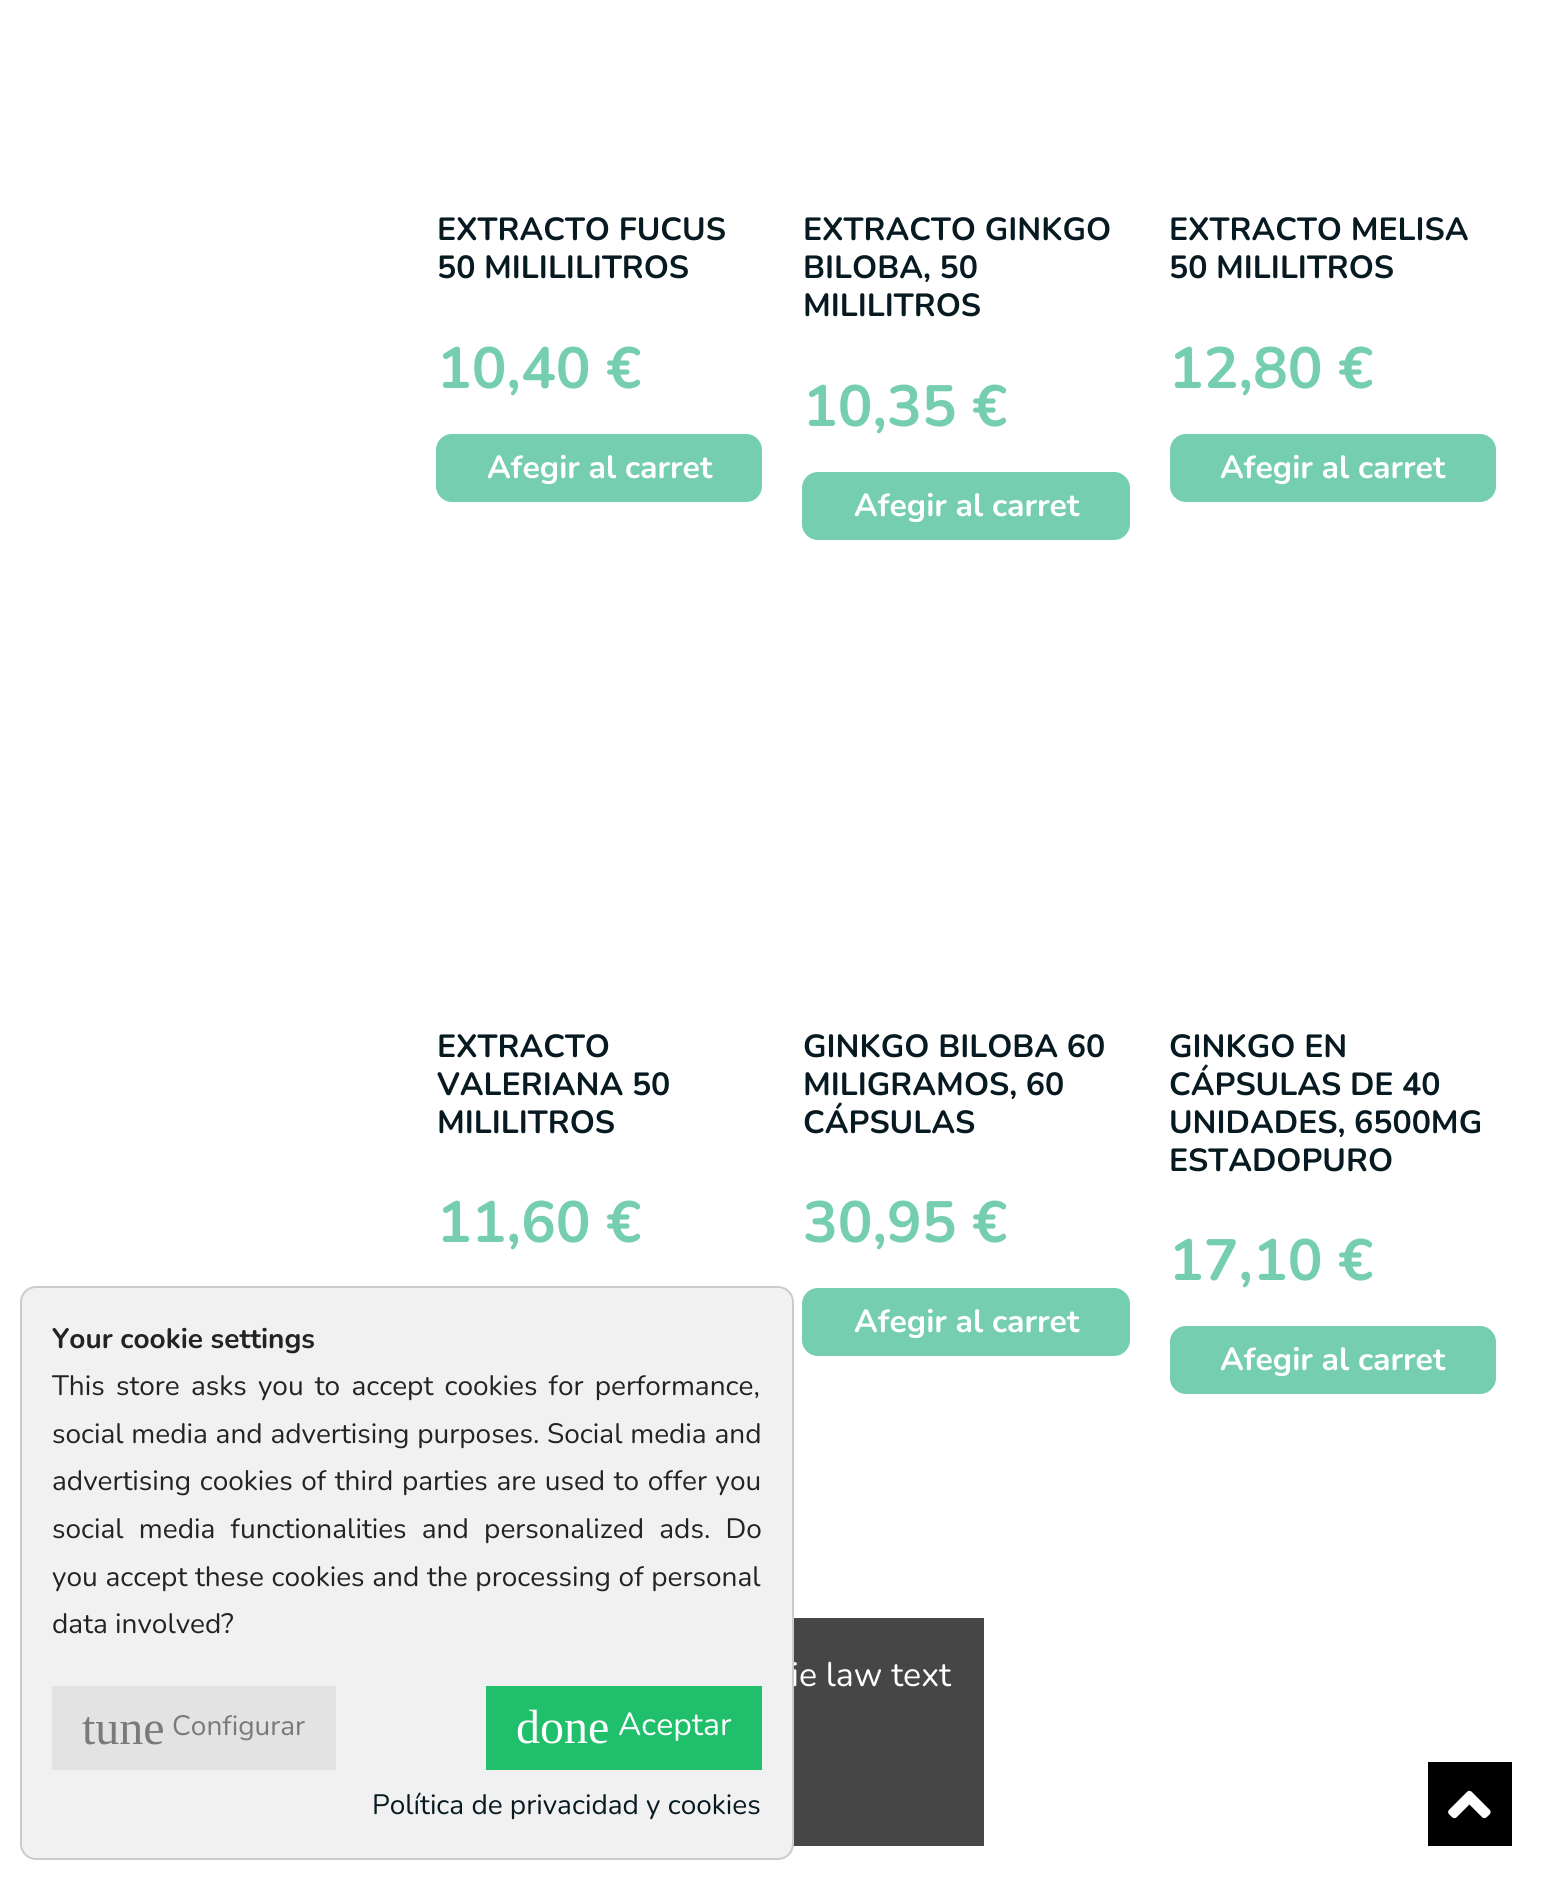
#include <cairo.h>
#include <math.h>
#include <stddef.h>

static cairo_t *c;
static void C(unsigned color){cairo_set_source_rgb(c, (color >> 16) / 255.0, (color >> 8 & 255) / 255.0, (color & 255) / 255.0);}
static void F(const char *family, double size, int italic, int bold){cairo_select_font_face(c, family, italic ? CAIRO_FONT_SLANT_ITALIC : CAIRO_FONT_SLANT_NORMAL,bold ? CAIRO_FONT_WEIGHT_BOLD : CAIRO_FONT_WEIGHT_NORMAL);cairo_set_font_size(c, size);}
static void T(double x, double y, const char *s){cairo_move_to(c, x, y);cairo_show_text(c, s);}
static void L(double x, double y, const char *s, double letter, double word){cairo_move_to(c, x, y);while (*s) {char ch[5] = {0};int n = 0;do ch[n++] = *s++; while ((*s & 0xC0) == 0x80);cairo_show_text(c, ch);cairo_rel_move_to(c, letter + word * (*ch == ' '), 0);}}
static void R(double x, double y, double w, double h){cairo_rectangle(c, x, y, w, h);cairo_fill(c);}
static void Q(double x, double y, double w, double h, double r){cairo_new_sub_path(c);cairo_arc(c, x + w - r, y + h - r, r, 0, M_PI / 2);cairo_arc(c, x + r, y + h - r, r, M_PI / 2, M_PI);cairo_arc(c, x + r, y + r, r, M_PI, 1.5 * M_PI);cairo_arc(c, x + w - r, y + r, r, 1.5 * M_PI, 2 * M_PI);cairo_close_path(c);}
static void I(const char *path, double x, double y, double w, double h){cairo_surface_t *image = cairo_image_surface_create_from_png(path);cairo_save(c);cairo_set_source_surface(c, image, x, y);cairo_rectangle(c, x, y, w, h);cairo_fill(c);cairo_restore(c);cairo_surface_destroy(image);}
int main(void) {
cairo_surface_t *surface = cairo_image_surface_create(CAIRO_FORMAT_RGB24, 1546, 1879);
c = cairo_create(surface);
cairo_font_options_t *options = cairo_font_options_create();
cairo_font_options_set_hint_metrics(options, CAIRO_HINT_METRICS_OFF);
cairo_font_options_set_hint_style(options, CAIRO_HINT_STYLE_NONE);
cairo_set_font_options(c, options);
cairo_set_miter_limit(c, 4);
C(0xffffff);
cairo_paint(c);
F("Nunito",32,0,1);
C(0x081a21);
T(437,240,"EXTRACTO FUCUS");
T(437,278,"50 MILILILITROS");
F("Nunito",58,0,1);
C(0x75ceaf);
T(437,388,"10,40 €");
Q(436,434,326,68,16);
cairo_fill(c);
F("Nunito",32,0,1);
C(0xffffff);
T(487,478,"Afegir al carret");
C(0x081a21);
T(803,240,"EXTRACTO GINKGO");
T(803,278,"BILOBA, 50");
T(803,316,"MILILITROS");
F("Nunito",58,0,1);
C(0x75ceaf);
T(803,426,"10,35 €");
Q(802,472,328,68,16);
cairo_fill(c);
F("Nunito",32,0,1);
C(0xffffff);
T(854,516,"Afegir al carret");
C(0x081a21);
T(1169,240,"EXTRACTO MELISA");
T(1169,278,"50 MILILITROS");
F("Nunito",58,0,1);
C(0x75ceaf);
T(1169,388,"12,80 €");
Q(1170,434,326,68,16);
cairo_fill(c);
F("Nunito",32,0,1);
C(0xffffff);
T(1220,478,"Afegir al carret");
C(0x081a21);
T(437,1057,"EXTRACTO");
T(437,1095,"VALERIANA 50");
T(437,1133,"MILILITROS");
F("Nunito",58,0,1);
C(0x75ceaf);
T(437,1242,"11,60 €");
F("Nunito",32,0,1);
C(0x081a21);
T(803,1057,"GINKGO BILOBA 60");
T(803,1095,"MILIGRAMOS, 60");
T(803,1133,"CÁPSULAS");
F("Nunito",58,0,1);
C(0x75ceaf);
T(803,1242,"30,95 €");
Q(802,1288,328,68,16);
cairo_fill(c);
F("Nunito",32,0,1);
C(0xffffff);
T(854,1332,"Afegir al carret");
C(0x081a21);
T(1169,1057,"GINKGO EN");
T(1169,1095,"CÁPSULAS DE 40");
T(1169,1133,"UNIDADES, 6500MG");
T(1169,1171,"ESTADOPURO");
F("Nunito",58,0,1);
C(0x75ceaf);
T(1169,1280,"17,10 €");
Q(1170,1326,326,68,16);
cairo_fill(c);
F("Nunito",32,0,1);
C(0xffffff);
T(1220,1370,"Afegir al carret");
C(0x464646);
R(793,1618,191,228);
F("Nunito",34,0,0);
C(0xffffff);
T(791,1686,"ie law text");
C(0xf1f1f1);
Q(21,1287,772,572,15);
cairo_fill_preserve(c);
C(0xcccccc);
cairo_stroke(c);
F("Nunito",28,0,1);
C(0x232323);
T(52,1348,"Your cookie settings");
F("Nunito",28,0,0);
L(52,1395,"This store asks you to accept cookies for performance,",0,4);
L(52,1443,"social media and advertising purposes. Social media and",0,.5);
L(52,1490,"advertising cookies of third parties are used to offer you",0,1.4);
L(52,1538,"social media functionalities and personalized ads. Do",0,8);
L(52,1586,"you accept these cookies and the processing of personal",0,.5);
T(52,1633,"data involved?");
C(0xe3e3e3);
R(52,1686,284,84);
F("Liberation Serif",48,0,0);
C(0x7a7a7a);
T(82,1744,"tune");
F("Nunito",28,0,0);
T(172,1735,"Configurar");
C(0x20bf6b);
R(486,1686,276,84);
F("Liberation Serif",48,0,0);
C(0xffffff);
T(516,1743,"done");
F("Nunito",32,0,0);
T(618,1735,"Aceptar");
F("Nunito",28,0,0);
C(0x081a21);
T(372,1814,"Política de privacidad y cookies");
C(0x000000);
R(1428,1762,84,84);
I("1.png",1448,1790,43,29);
cairo_surface_write_to_png(surface, "o.png");
cairo_font_options_destroy(options);
cairo_destroy(c);
cairo_surface_destroy(surface);
return 0;
}
